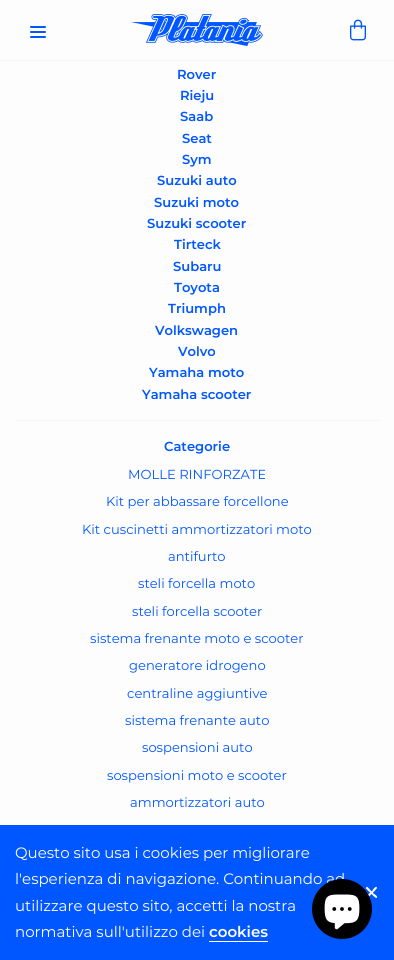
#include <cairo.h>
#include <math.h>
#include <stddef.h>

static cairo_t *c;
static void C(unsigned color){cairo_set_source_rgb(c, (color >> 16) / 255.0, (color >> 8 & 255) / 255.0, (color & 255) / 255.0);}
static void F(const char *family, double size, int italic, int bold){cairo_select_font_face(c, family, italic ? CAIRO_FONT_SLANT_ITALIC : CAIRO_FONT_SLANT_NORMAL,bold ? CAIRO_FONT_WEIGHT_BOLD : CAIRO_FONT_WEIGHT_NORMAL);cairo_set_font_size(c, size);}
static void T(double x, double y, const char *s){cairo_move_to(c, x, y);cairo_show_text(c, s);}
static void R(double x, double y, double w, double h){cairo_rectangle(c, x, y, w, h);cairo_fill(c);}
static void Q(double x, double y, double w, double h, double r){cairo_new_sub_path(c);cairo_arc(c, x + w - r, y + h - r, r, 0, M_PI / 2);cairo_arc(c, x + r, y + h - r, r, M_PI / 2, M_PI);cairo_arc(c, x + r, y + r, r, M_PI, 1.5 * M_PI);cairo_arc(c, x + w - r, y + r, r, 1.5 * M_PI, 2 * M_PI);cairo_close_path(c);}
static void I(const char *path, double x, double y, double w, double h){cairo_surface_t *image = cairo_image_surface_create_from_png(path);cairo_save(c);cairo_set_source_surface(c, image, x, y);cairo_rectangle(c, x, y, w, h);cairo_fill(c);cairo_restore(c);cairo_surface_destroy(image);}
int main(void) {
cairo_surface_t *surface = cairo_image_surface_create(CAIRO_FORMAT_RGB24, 394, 960);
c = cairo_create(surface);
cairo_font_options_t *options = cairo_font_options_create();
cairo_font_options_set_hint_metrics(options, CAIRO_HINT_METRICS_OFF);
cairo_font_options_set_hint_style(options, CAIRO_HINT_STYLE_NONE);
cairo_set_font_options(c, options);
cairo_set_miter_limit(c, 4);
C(0xfdfdfd);
cairo_paint(c);
C(0xf3f3f3);
R(0,60,394,1);
C(0x0056ff);
Q(30,26,16,2,1);
cairo_fill(c);
Q(30,31,16,2,1);
cairo_fill(c);
Q(30,36,16,2,1);
cairo_fill(c);
I("1.png",131,14,132,32);
I("2.png",350,19,16,22);
F("Montserrat SemiBold",13.1,0,0);
T(177,79,"Rover");
T(180,100,"Rieju");
T(180,121,"Saab");
T(182,143,"Seat");
T(182,164,"Sym");
T(157,185,"Suzuki auto");
T(154,207,"Suzuki moto");
T(147,228,"Suzuki scooter");
T(174,249,"Tirteck");
T(173,271,"Subaru");
T(174,292,"Toyota");
T(168,313,"Triumph");
T(155,335,"Volkswagen");
T(178,356,"Volvo");
T(149,377,"Yamaha moto");
T(142,399,"Yamaha scooter");
C(0xf3f3f3);
R(15,420,364,1);
C(0x0056ff);
T(164,451,"Categorie");
F("Montserrat",13.1,0,0);
T(128,479,"MOLLE RINFORZATE");
T(106,506,"Kit per abbassare forcellone");
T(82,534,"Kit cuscinetti ammortizzatori moto");
T(168,561,"antifurto");
T(138,588,"steli forcella moto");
T(132,616,"steli forcella scooter");
T(90,643,"sistema frenante moto e scooter");
T(129,670,"generatore idrogeno");
T(127,698,"centraline aggiuntive");
T(125,725,"sistema frenante auto");
T(142,752,"sospensioni auto");
T(107,780,"sospensioni moto e scooter");
T(130,807,"ammortizzatori auto");
R(0,825,394,135);
F("Montserrat",15,0,0);
C(0xffffff);
T(15,858,"Questo sito usa i cookies per migliorare");
T(15,884,"l'esperienza di navigazione. Continuando ad");
T(15,911,"utilizzare questo sito, accetti la nostra");
T(15,937,"normativa sull'utilizzo dei");
F("Montserrat SemiBold",15,0,0);
T(209,937,"cookies");
R(209,941,59,1);
cairo_new_path(c);
cairo_move_to(c,367.5,887);
cairo_line_to(c,373.5,893.5);
cairo_curve_to(c,374.5,894,378,896.5,377,897.5);
cairo_curve_to(c,376,899,374.5,896.5,374,896.5);
cairo_line_to(c,366,888.5);
cairo_curve_to(c,365.5,887.5,367,886.5,367.5,887);
cairo_close_path(c);
cairo_fill(c);
cairo_new_path(c);
cairo_move_to(c,366,896.5);
cairo_line_to(c,372.5,890.5);
cairo_curve_to(c,373,889.5,375.5,886,376.5,887);
cairo_curve_to(c,378,888,375.5,889.5,375.5,890);
cairo_line_to(c,367.5,898);
cairo_curve_to(c,366.5,898.5,365.5,897,366,896.5);
cairo_close_path(c);
cairo_fill(c);
C(0x000000);
cairo_arc(c,342,909,30,0,2 * M_PI);
cairo_fill(c);
I("3.png",324,894,36,36);
cairo_surface_write_to_png(surface, "o.png");
cairo_font_options_destroy(options);
cairo_destroy(c);
cairo_surface_destroy(surface);
return 0;
}
